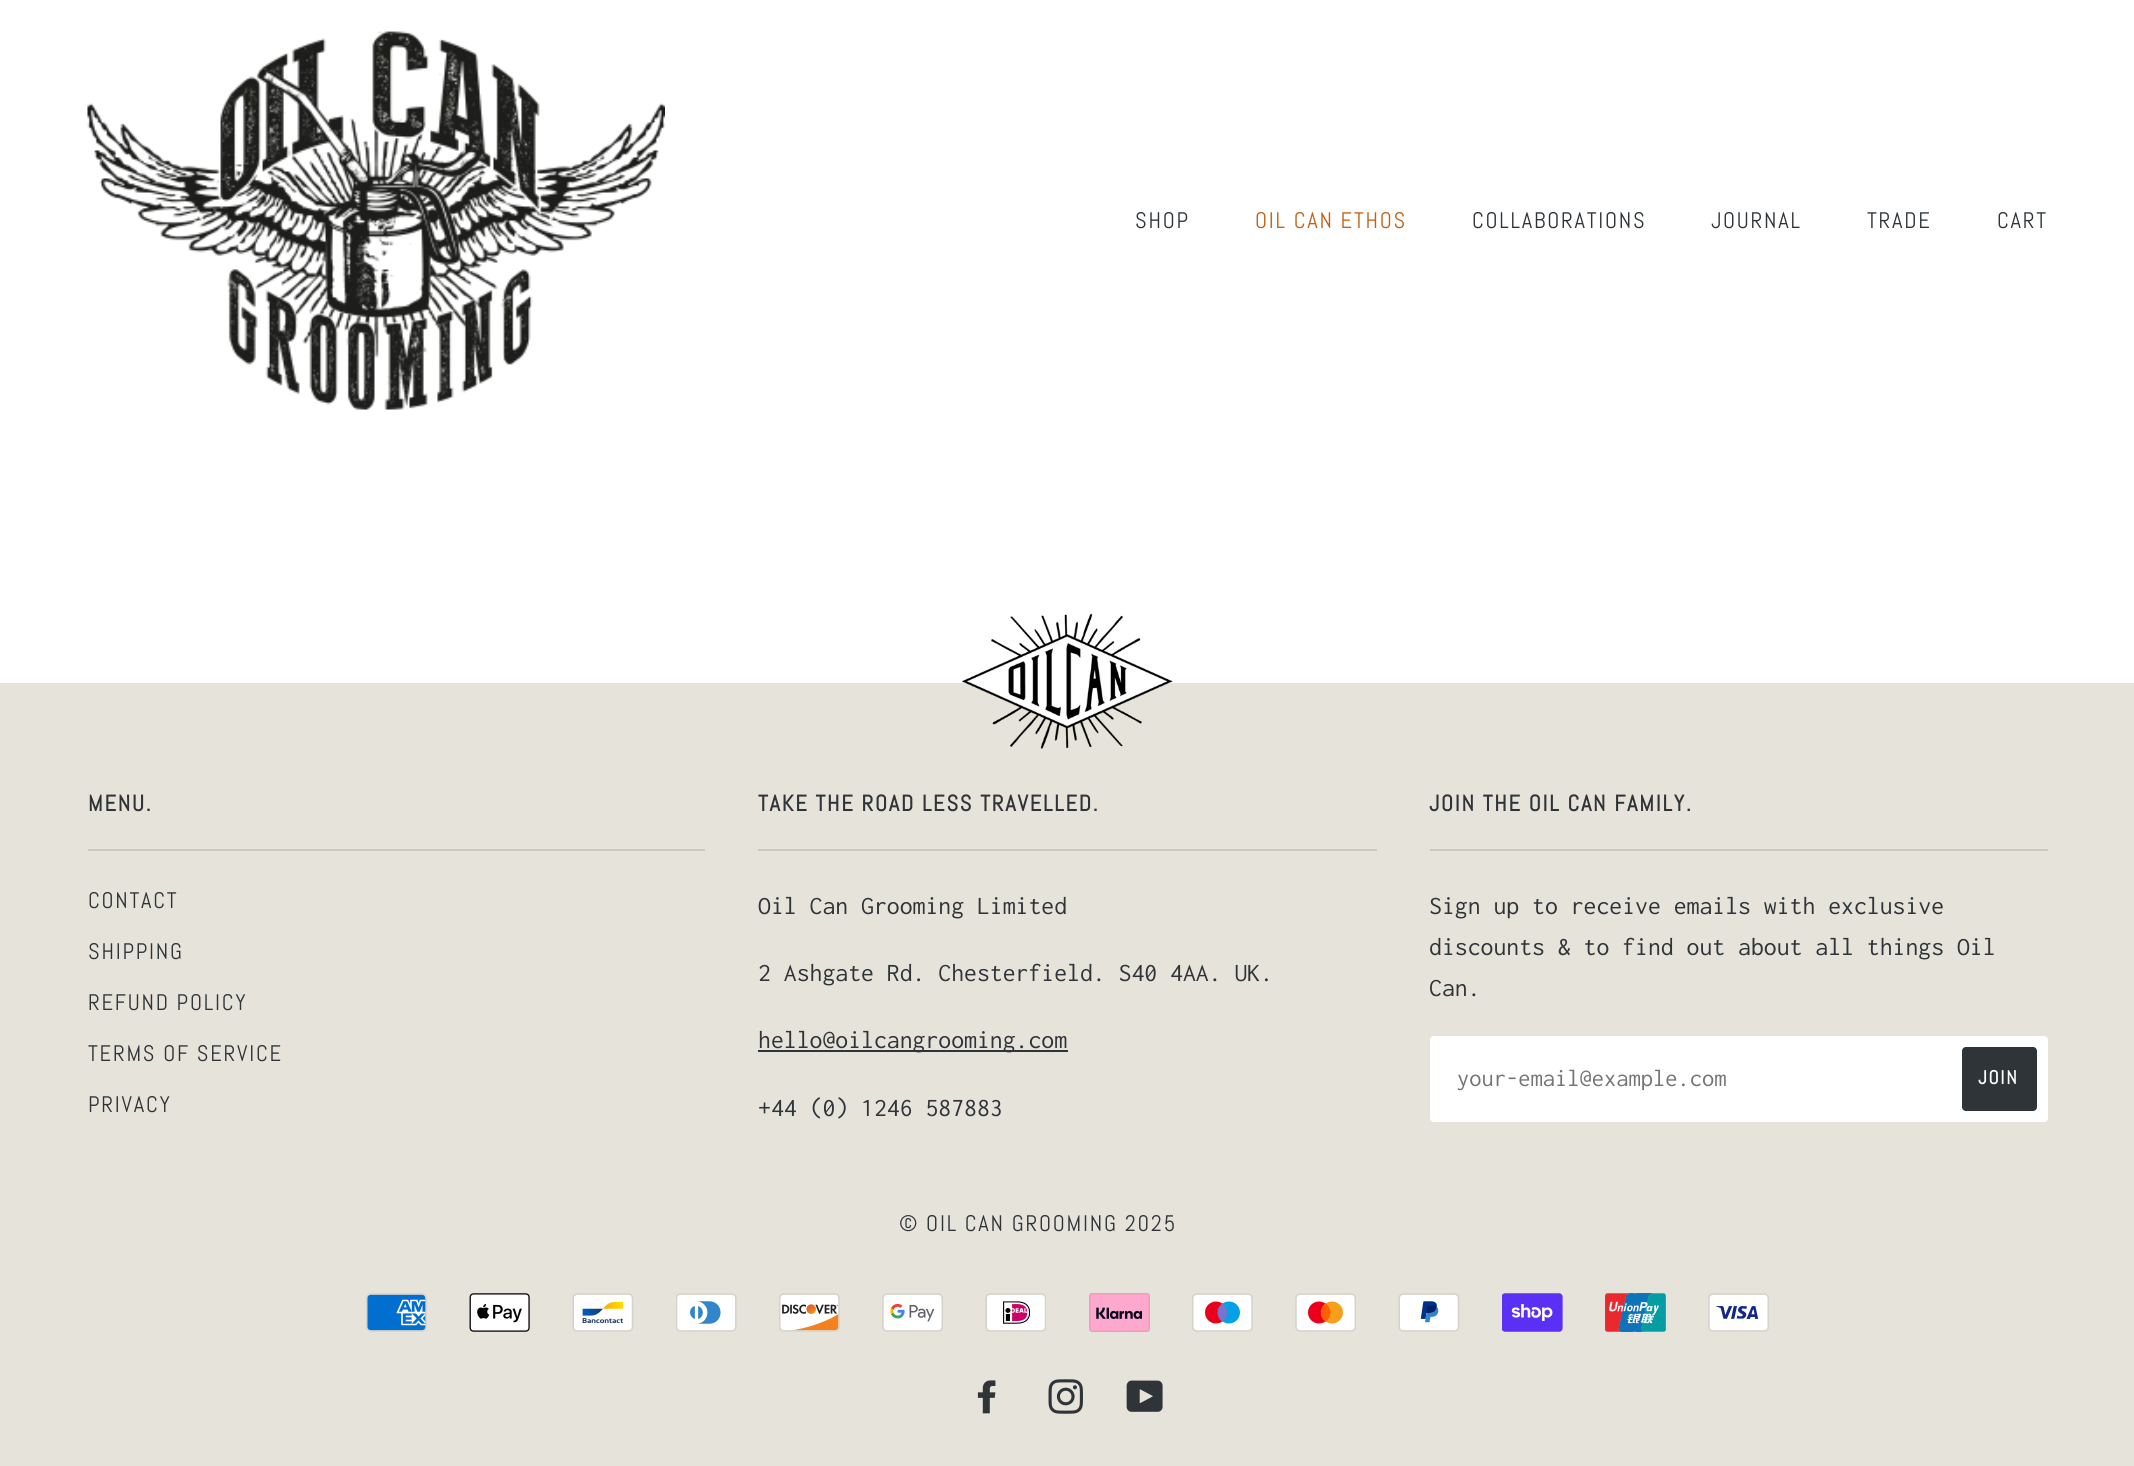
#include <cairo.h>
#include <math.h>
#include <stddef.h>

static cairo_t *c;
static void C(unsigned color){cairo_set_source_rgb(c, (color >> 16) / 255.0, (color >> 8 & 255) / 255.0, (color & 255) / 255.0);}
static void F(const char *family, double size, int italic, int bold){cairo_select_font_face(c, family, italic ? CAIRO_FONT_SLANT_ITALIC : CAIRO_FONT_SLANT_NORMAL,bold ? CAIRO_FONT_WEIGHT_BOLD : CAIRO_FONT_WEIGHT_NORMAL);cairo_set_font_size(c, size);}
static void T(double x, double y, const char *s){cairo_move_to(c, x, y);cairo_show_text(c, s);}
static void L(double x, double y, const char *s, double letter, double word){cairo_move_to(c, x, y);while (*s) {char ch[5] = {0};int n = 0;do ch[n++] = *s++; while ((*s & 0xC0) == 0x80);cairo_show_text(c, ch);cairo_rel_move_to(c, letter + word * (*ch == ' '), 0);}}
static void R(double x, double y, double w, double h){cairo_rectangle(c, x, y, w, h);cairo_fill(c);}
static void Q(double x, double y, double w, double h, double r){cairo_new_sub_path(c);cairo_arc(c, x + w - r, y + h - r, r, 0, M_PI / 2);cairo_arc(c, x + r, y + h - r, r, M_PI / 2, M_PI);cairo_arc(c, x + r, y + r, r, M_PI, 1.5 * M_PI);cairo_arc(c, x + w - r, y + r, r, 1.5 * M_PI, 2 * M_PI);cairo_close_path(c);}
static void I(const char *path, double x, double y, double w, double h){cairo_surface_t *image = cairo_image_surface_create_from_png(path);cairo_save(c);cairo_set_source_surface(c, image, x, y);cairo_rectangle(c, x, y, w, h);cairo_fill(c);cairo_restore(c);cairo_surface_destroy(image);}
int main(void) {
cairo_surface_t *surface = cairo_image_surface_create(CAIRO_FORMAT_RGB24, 2134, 1466);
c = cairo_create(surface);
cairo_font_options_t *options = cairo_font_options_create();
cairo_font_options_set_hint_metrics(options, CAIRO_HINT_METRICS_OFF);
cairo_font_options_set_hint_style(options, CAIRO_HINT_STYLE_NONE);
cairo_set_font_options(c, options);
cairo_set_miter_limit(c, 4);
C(0xffffff);
cairo_paint(c);
I("1.png",87,31,578,379);
F("Abel",22.5,0,0);
C(0x2e3438);
L(1135,228,"SHOP",1.75,0);
C(0xc06319);
L(1255,228,"OIL CAN ETHOS",1.75,0);
C(0x2e3438);
L(1472,228,"COLLABORATIONS",1.75,0);
L(1711,228,"JOURNAL",1.75,0);
L(1867,228,"TRADE",1.75,0);
L(1997,228,"CART",1.75,0);
C(0xe6e3da);
R(0,683,2134,783);
I("2.png",962,613,211,136);
F("Abel",22.5,0,1);
C(0x2e3438);
L(88,811,"MENU.",1.75,0);
C(0xcac9c2);
R(88,849,617,2);
F("Abel",22.5,0,0);
C(0x2e3438);
L(88,908,"CONTACT",1.75,0);
L(88,959,"SHIPPING",1.75,0);
L(88,1010,"REFUND POLICY",1.75,0);
L(88,1061,"TERMS OF SERVICE",1.75,0);
L(88,1112,"PRIVACY",1.75,0);
F("Abel",22.5,0,1);
L(758,811,"TAKE THE ROAD LESS TRAVELLED.",1.75,0);
C(0xcac9c2);
R(758,849,619,2);
F("Inconsolata",25.75,0,0);
C(0x2e3438);
T(758,914,"Oil Can Grooming Limited");
T(758,981,"2 Ashgate Rd. Chesterfield. S40 4AA. UK.");
R(758,1050,310,2);
T(758,1048,"hello@oilcangrooming.com");
T(758,1116,"+44 (0) 1246 587883");
F("Abel",22.5,0,1);
L(1429,811,"JOIN THE OIL CAN FAMILY.",1.75,0);
C(0xcac9c2);
R(1430,849,618,2);
F("Inconsolata",25.75,0,0);
C(0x2e3438);
T(1429,914,"Sign up to receive emails with exclusive");
T(1429,955,"discounts & to find out about all things Oil");
T(1429,996,"Can.");
C(0xffffff);
Q(1430,1036,618,86,4);
cairo_fill(c);
F("Inconsolata",24.5,0,0);
C(0x757575);
T(1457,1086,"your-email@example.com");
C(0x2e3438);
Q(1962,1047,75,64,4);
cairo_fill(c);
F("Abel",19,0,1);
C(0xffffff);
L(1978,1084,"JOIN",1.75,0);
F("Abel",22.5,0,0);
C(0x2e3438);
L(899,1231,"© OIL CAN GROOMING 2025",1.75,0);
I("3.png",366,1293,61,39);
I("4.png",469,1293,61,39);
I("5.png",572,1293,62,39);
I("6.png",676,1293,61,39);
I("7.png",779,1293,61,39);
I("8.png",882,1293,61,39);
I("9.png",985,1293,61,39);
I("10.png",1089,1293,61,39);
I("11.png",1192,1293,61,39);
I("12.png",1295,1293,61,39);
I("13.png",1398,1293,62,39);
I("14.png",1502,1293,61,39);
I("15.png",1605,1293,61,39);
I("16.png",1708,1293,61,39);
I("17.png",977,1380,19,34);
I("18.png",1048,1379,35,35);
I("19.png",1126,1380,37,32);
cairo_surface_write_to_png(surface, "o.png");
cairo_font_options_destroy(options);
cairo_destroy(c);
cairo_surface_destroy(surface);
return 0;
}
